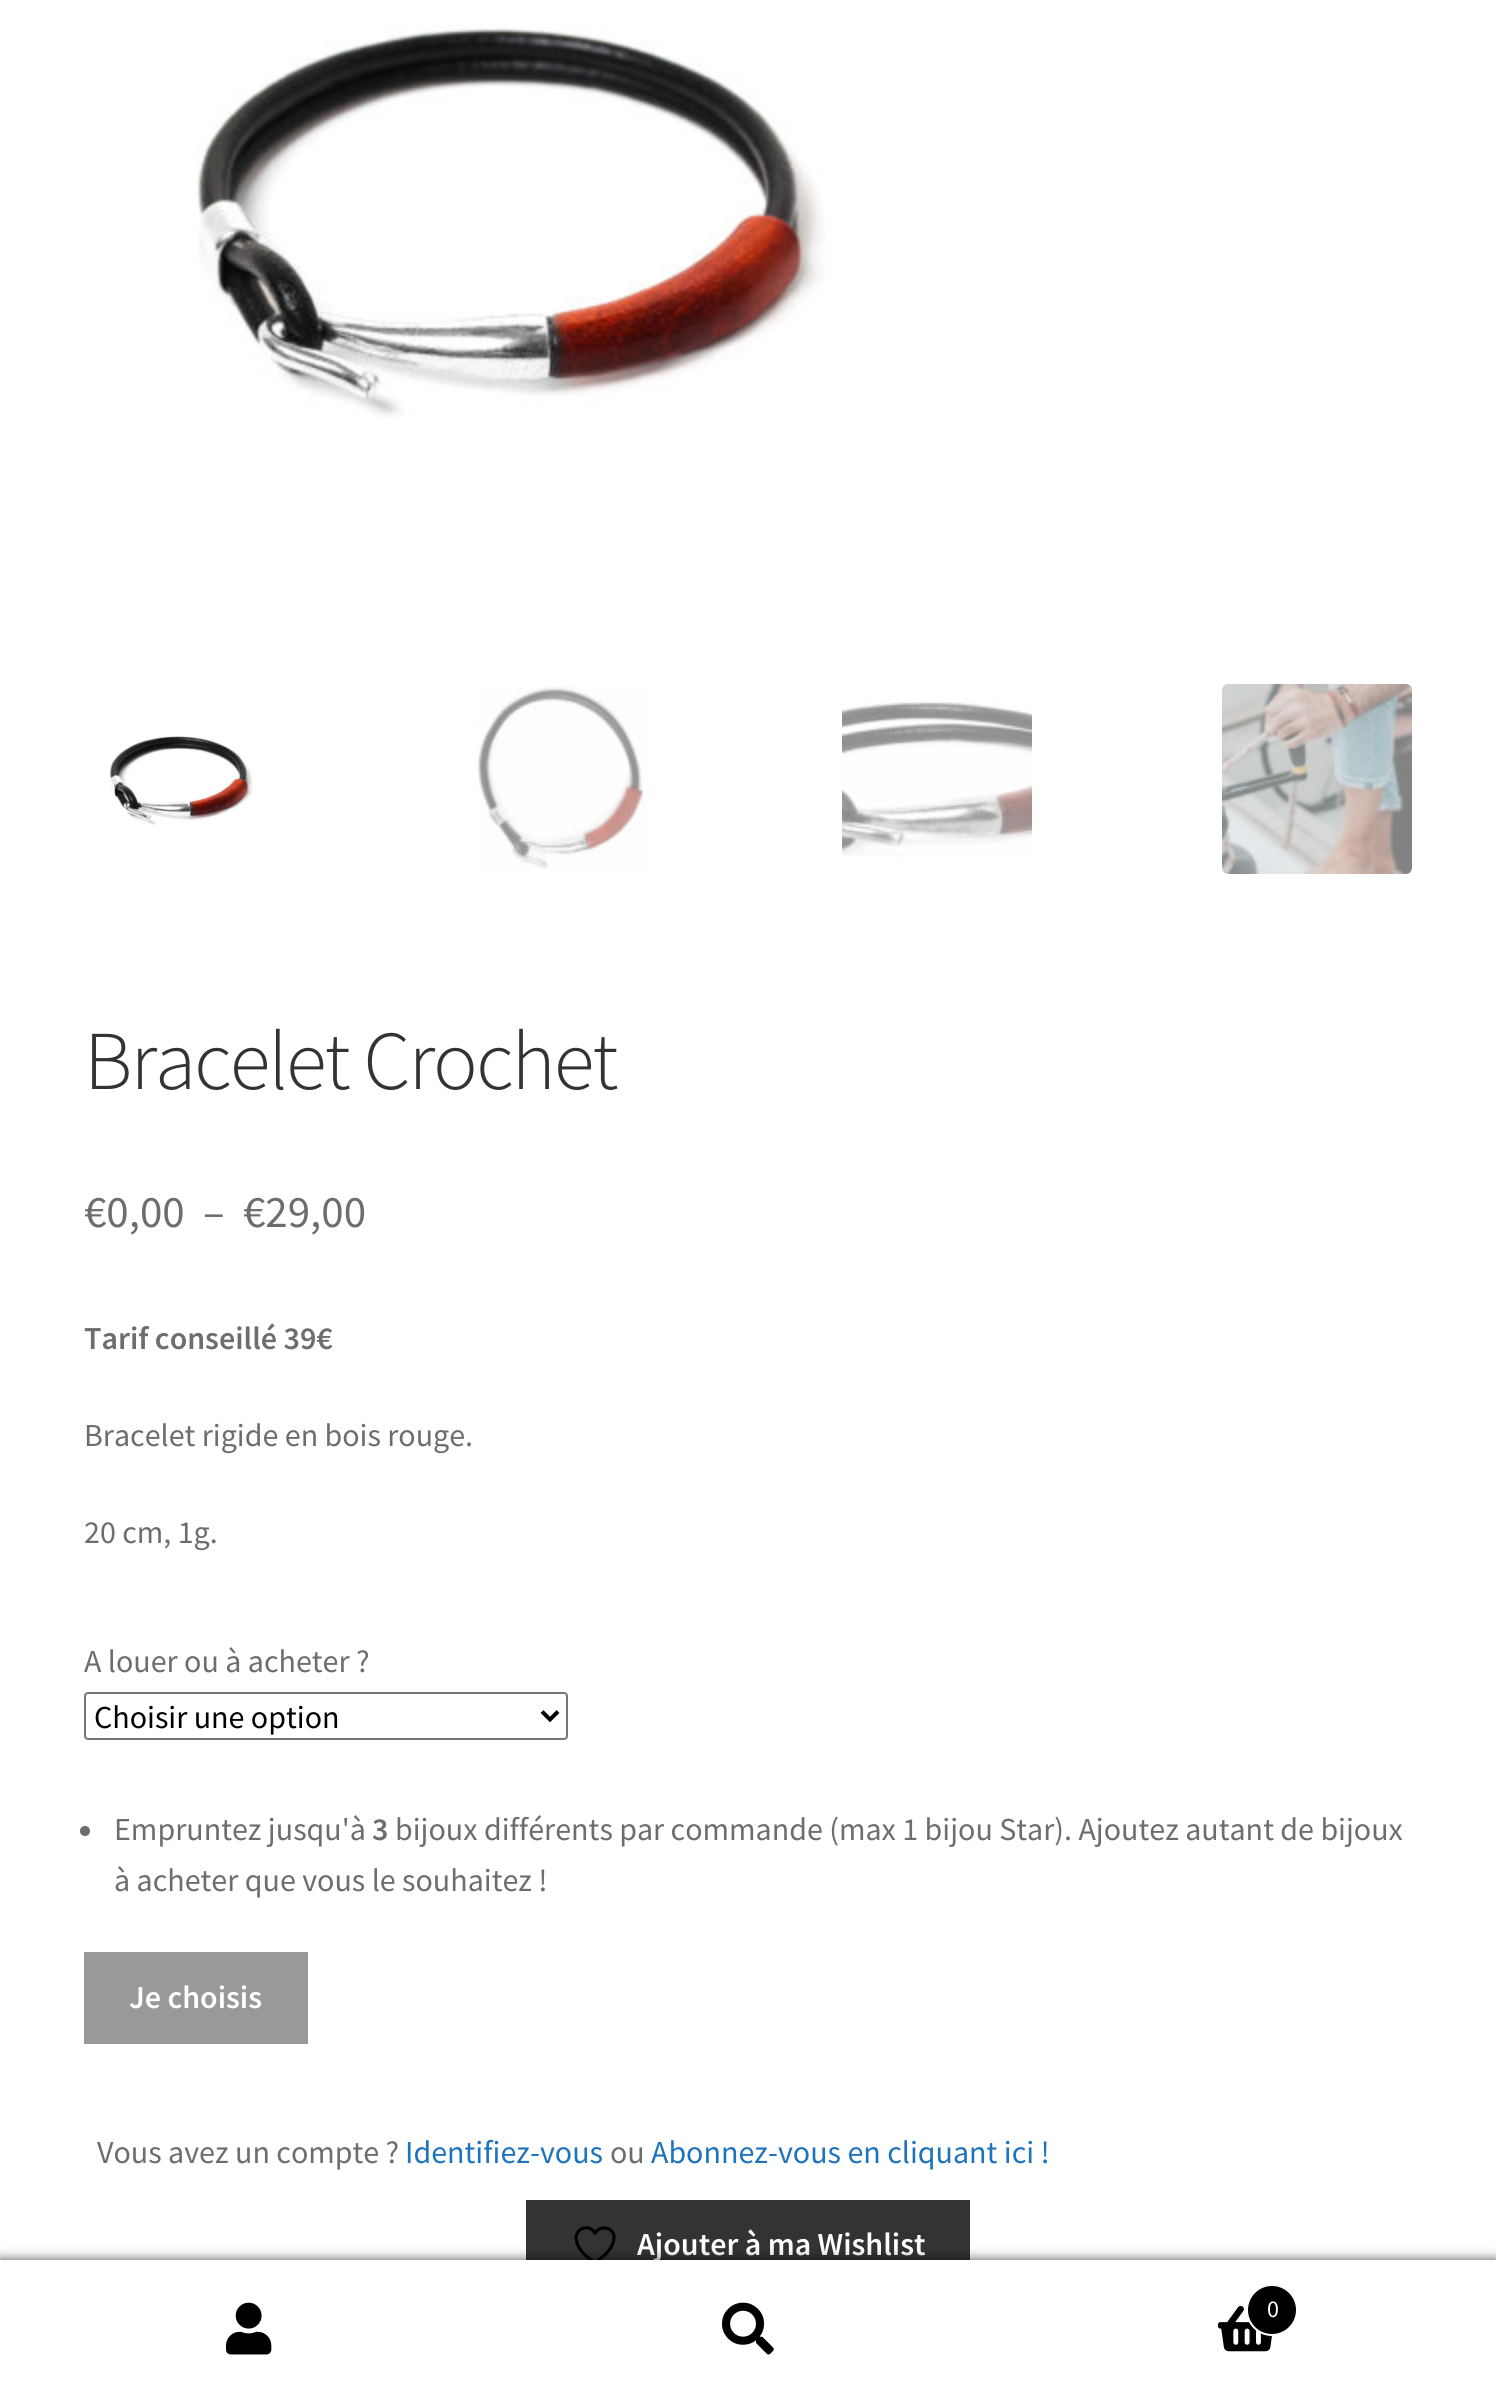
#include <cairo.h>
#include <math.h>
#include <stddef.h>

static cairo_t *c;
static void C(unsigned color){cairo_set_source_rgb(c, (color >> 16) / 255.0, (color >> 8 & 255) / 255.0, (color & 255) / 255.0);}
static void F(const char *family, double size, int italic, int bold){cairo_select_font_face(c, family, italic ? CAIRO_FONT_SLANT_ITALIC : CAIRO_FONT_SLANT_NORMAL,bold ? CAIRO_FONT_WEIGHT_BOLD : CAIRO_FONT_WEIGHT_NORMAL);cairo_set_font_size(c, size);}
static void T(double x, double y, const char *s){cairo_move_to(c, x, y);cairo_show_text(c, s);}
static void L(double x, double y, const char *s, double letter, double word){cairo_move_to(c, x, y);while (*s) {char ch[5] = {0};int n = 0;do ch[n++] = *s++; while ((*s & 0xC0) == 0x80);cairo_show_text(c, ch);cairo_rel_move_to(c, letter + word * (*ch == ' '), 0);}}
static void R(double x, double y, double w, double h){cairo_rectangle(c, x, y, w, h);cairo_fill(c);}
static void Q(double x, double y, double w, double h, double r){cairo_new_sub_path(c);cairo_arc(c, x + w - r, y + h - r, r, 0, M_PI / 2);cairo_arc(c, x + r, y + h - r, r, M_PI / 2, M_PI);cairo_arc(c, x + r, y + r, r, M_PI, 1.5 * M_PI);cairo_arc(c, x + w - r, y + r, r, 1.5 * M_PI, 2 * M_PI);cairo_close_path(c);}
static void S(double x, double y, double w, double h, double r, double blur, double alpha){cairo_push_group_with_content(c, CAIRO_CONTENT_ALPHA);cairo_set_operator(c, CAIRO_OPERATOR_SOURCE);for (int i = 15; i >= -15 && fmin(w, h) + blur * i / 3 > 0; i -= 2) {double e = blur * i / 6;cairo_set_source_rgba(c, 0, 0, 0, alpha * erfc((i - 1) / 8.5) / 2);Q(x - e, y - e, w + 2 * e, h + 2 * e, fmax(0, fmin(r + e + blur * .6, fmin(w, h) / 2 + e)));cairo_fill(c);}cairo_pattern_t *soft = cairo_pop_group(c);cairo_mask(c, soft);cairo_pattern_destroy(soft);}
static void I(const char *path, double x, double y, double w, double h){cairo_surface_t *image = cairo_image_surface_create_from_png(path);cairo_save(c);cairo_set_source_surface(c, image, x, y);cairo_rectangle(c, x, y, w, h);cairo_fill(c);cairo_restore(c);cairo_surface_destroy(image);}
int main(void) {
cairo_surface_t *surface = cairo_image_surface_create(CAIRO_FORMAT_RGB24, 1496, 2398);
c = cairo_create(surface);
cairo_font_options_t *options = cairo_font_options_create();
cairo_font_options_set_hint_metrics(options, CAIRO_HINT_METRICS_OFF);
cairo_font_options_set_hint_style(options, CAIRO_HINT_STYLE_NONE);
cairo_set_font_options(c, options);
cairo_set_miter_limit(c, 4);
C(0xffffff);
cairo_paint(c);
I("1.png",196,25,629,393);
I("2.png",109,736,144,89);
I("3.png",476,686,171,184);
I("4.png",842,701,190,156);
I("5.png",1222,684,190,190);
F("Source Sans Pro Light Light",83.75,0,0);
C(0x333333);
L(84,1089,"Bracelet Crochet",-2,0);
F("Source Sans Pro",45,0,0);
C(0x6d6d6d);
T(84,1227,"€0,00");
T(203,1227,"–");
T(243,1227,"€29,00");
F("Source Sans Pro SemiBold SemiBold",32,0,0);
T(84,1349,"Tarif conseillé 39€");
F("Source Sans Pro",32,0,0);
T(84,1446,"Bracelet rigide en bois rouge.");
T(84,1543,"20 cm, 1g.");
T(84,1672,"A louer ou à acheter ?");
Q(85,1693,482,46,3);
C(0x767676);
cairo_stroke(c);
cairo_new_path(c);
cairo_move_to(c,542,1711.5);
cairo_line_to(c,550,1719.5);
cairo_line_to(c,558,1711.5);
C(0x000000);
cairo_set_line_width(c,4);
cairo_stroke(c);
T(94,1728,"Choisir une option");
C(0x6d6d6d);
cairo_new_path(c);
cairo_arc(c,85,1831,5,0,2 * M_PI);
cairo_fill(c);
T(114,1840,"Empruntez jusqu'à");
F("Source Sans Pro SemiBold SemiBold",32,0,0);
T(372,1840,"3");
F("Source Sans Pro",32,0,0);
T(395,1840,"bijoux différents par commande (max 1 bijou Star). Ajoutez autant de bijoux");
T(114,1891,"à acheter que vous le souhaitez !");
C(0x999999);
R(84,1952,224,92);
F("Source Sans Pro SemiBold SemiBold",32,0,0);
C(0xffffff);
T(129,2008,"Je choisis");
F("Source Sans Pro",32,0,0);
C(0x6d6d6d);
T(97,2163,"Vous avez un compte ?");
C(0x1e73be);
T(405,2163,"Identifiez-vous");
C(0x6d6d6d);
T(610,2163,"ou");
C(0x1e73be);
T(651,2163,"Abonnez-vous en cliquant ici !");
C(0x333333);
R(526,2200,444,60);
cairo_new_path(c);
cairo_move_to(c,614,2237);
cairo_curve_to(c,614,2227,599,2224.5,595,2233.5);
cairo_curve_to(c,590,2222,568.5,2228.5,579,2247.5);
cairo_curve_to(c,582.5,2253.5,589,2259,595,2262);
cairo_curve_to(c,595,2262,614,2252,614,2237);
cairo_close_path(c);
C(0x000000);
cairo_set_line_width(c,3.1);
cairo_set_line_cap(c,CAIRO_LINE_CAP_ROUND);
cairo_set_line_join(c,CAIRO_LINE_JOIN_ROUND);
cairo_stroke(c);
F("Source Sans Pro SemiBold SemiBold",32,0,0);
C(0xffffff);
T(637,2255,"Ajouter à ma Wishlist");
C(0x000000);
S(0,2260,1496,138,0,6,.7);
C(0xffffff);
R(0,2260,1496,2);
R(0,2262,1496,136);
I("6.png",226,2302,46,53);
I("7.png",722,2302,52,53);
I("8.png",1218,2305,55,47);
C(0x000000);
cairo_arc(c,1272,2310,25,0,2 * M_PI);
cairo_fill_preserve(c);
C(0xffffff);
cairo_set_line_width(c,2);
cairo_set_line_cap(c,CAIRO_LINE_CAP_BUTT);
cairo_set_line_join(c,CAIRO_LINE_JOIN_MITER);
cairo_stroke(c);
F("Source Sans Pro",24,0,0);
T(1267,2317,"0");
cairo_surface_write_to_png(surface, "o.png");
cairo_font_options_destroy(options);
cairo_destroy(c);
cairo_surface_destroy(surface);
return 0;
}
